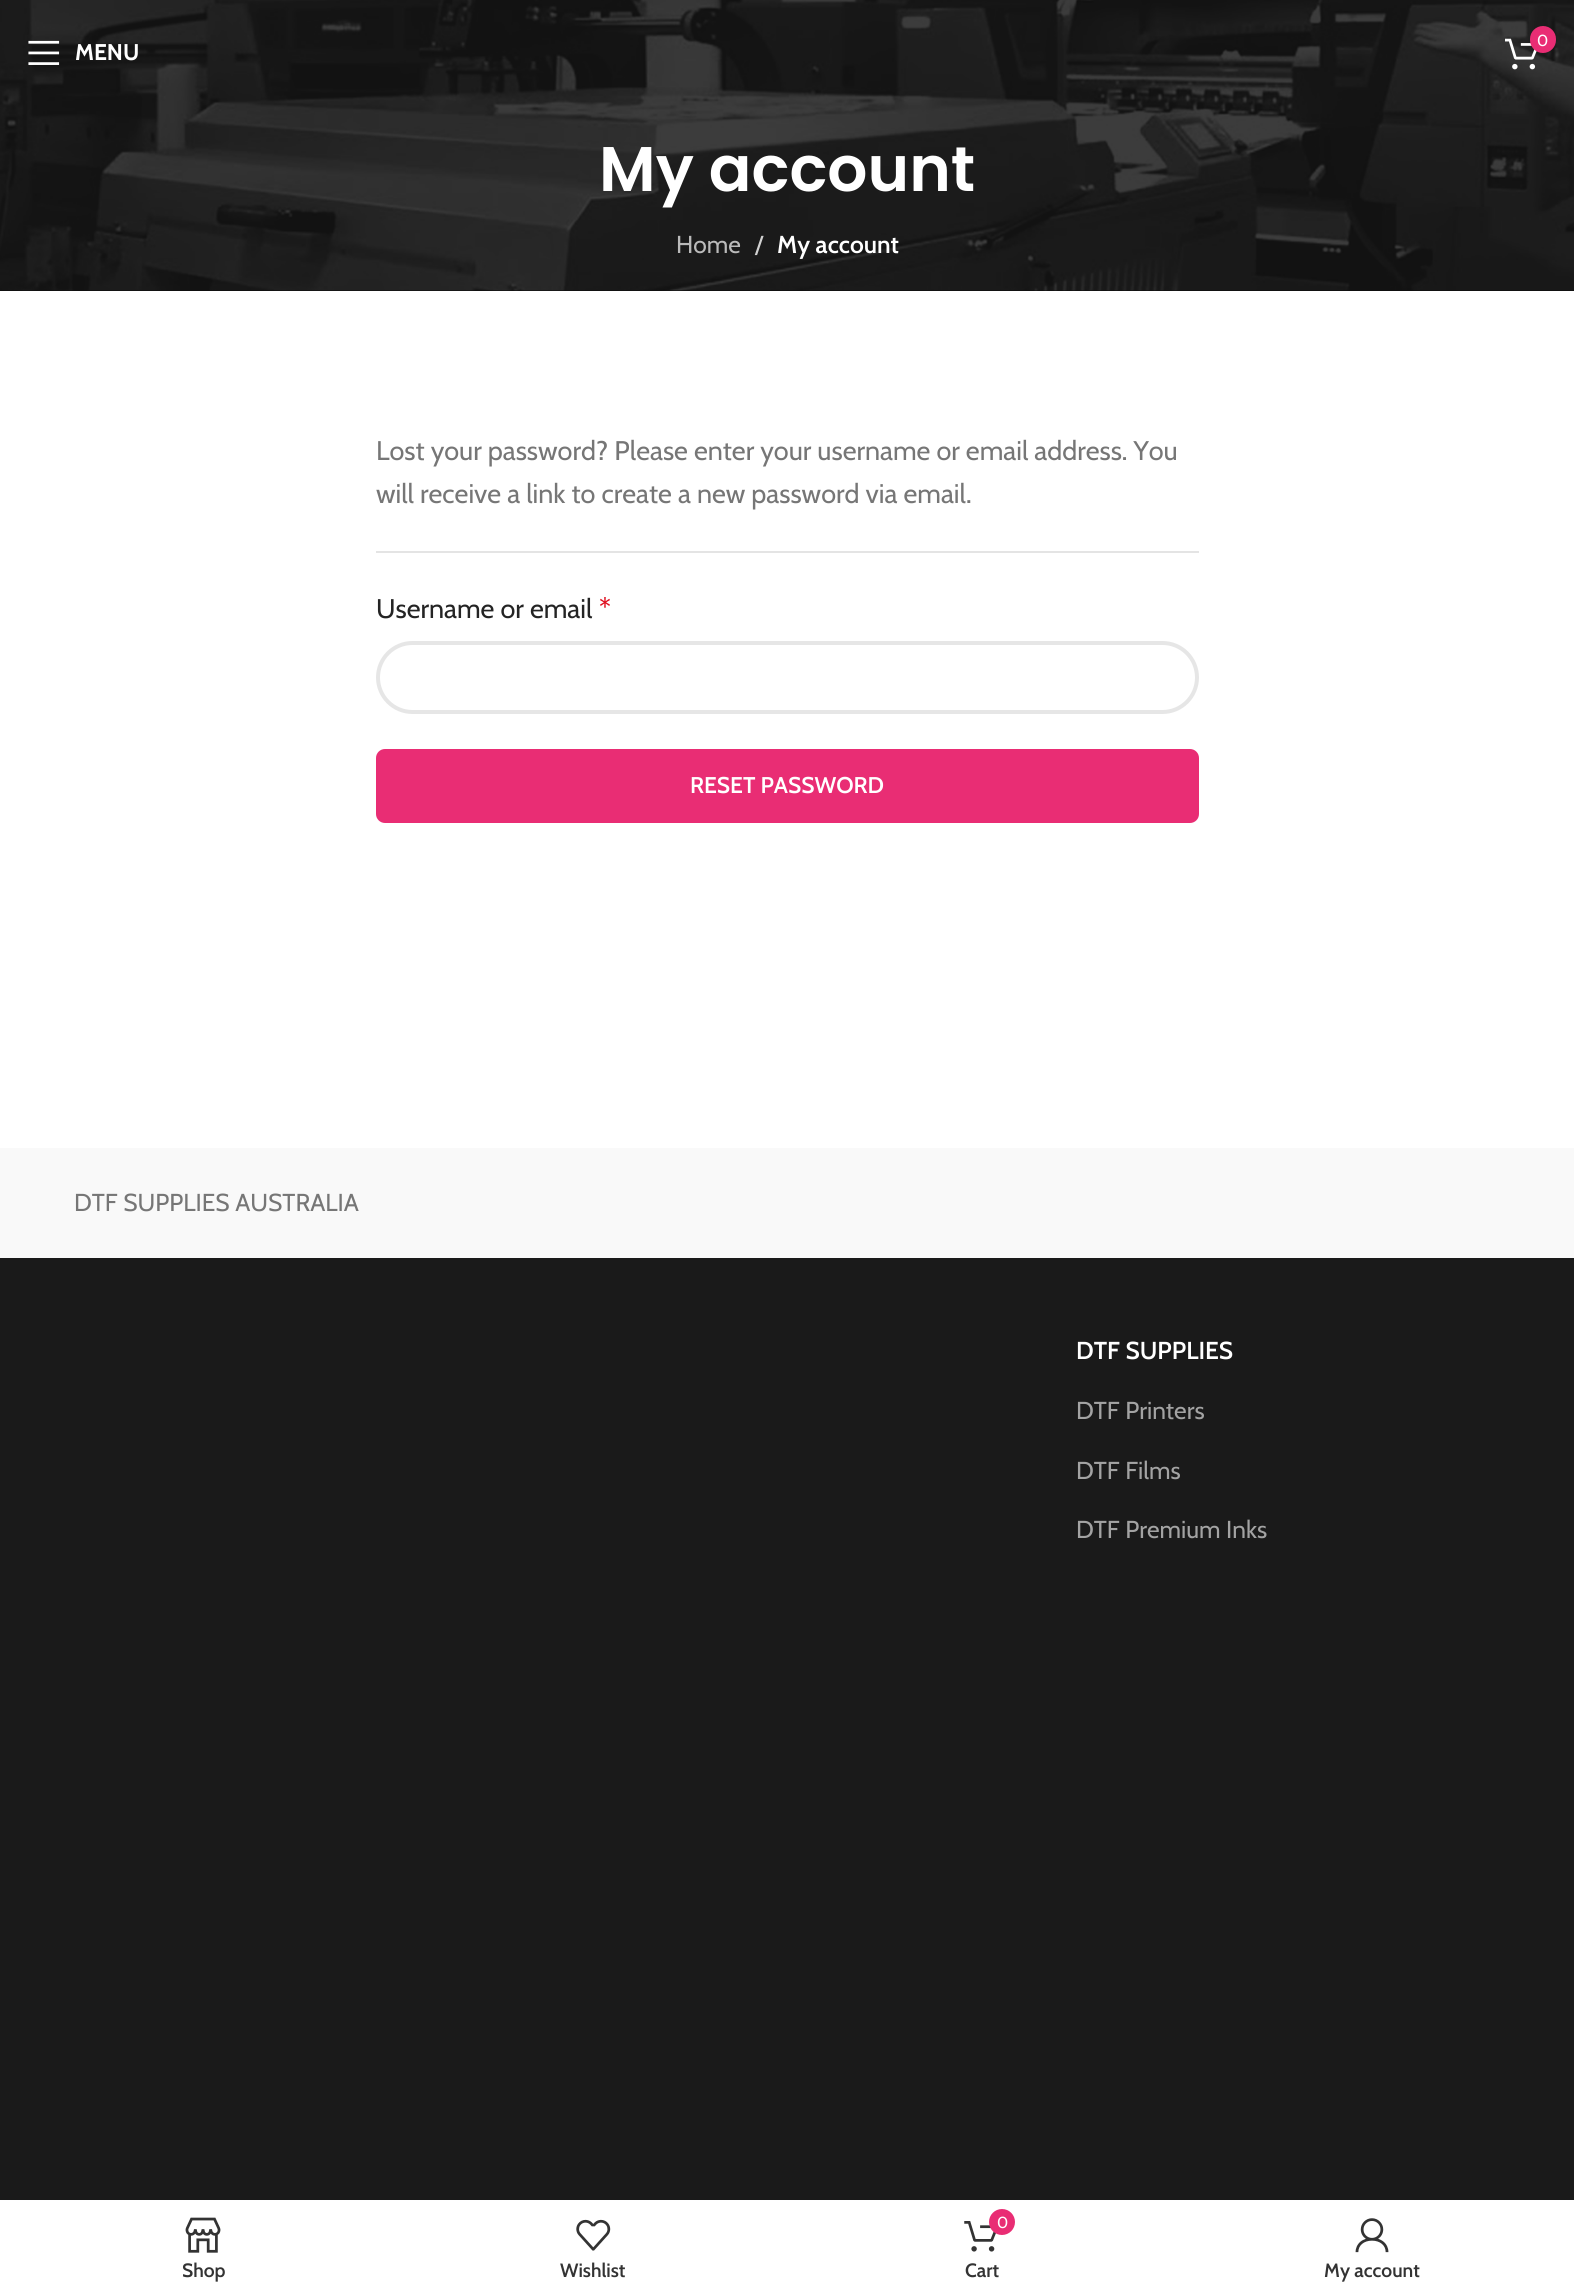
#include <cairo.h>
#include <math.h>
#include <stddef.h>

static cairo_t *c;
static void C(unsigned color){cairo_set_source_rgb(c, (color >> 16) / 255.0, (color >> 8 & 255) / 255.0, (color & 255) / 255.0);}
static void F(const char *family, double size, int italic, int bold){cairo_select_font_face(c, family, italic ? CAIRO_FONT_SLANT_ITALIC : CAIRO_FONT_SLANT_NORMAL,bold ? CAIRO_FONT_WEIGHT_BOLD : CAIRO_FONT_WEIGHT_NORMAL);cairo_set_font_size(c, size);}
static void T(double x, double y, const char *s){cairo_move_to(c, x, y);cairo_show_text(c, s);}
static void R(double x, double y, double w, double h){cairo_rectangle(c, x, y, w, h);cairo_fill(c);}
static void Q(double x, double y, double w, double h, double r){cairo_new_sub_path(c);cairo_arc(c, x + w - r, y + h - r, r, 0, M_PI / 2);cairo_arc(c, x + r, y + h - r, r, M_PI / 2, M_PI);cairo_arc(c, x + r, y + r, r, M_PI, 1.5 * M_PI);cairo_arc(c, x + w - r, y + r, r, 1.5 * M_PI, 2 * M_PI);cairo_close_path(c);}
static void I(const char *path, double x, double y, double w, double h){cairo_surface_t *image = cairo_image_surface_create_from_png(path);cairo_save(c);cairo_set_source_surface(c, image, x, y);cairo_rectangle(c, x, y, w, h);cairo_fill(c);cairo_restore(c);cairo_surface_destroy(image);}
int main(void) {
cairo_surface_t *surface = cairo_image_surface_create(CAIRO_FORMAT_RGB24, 1574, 2295);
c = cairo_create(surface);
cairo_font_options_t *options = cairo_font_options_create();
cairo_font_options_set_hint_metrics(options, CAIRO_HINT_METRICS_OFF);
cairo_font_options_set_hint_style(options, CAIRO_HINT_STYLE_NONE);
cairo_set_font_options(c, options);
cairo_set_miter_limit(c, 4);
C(0xffffff);
cairo_paint(c);
C(0x0a0a0a);
R(0,290,1574,1);
I("3.png",0,0,1574,291);
I("1.png",1505,38,32,32);
C(0xe92d74);
Q(1530,26,26,27,13);
cairo_fill(c);
F("Cabin",16,0,0);
C(0xffffff);
T(1537,46,"0");
I("2.png",28,40,32,25);
F("Cabin",22.75,0,1);
T(75,60,"MENU");
F("Poppins SemiBold",63,0,0);
T(599,191,"My account");
F("Cabin",24.5,0,0);
C(0xbababa);
T(676,253,"Home");
C(0xd1d1d1);
T(755,253,"/");
F("Cabin SemiBold",24.5,0,0);
C(0xffffff);
T(777,253,"My account");
F("Cabin",26.95,0,0);
C(0x767676);
T(376,460,"Lost your password? Please enter your username or email address. You");
T(376,503,"will receive a link to create a new password via email.");
C(0xe4e4e4);
R(376,551,823,2);
C(0x242424);
T(376,618,"Username or email");
F("Cabin",28,0,0);
C(0xe01020);
T(599,618,"*");
Q(378,643,819,69,34.5);
C(0xe6e6e6);
cairo_set_line_width(c,4);
cairo_stroke(c);
C(0xe92d74);
Q(376,749,823,74,9);
cairo_fill(c);
F("Cabin SemiBold",22.75,0,0);
C(0xffffff);
T(690,793,"RESET PASSWORD");
C(0xf9f9f9);
R(0,1148,1574,110);
F("Cabin",24.5,0,0);
C(0x767676);
T(74,1211,"DTF SUPPLIES AUSTRALIA");
C(0x1a1a1a);
R(0,1258,1574,942);
F("Cabin SemiBold",24.5,0,0);
C(0xffffff);
T(1076,1359,"DTF SUPPLIES");
F("Cabin",24.5,0,0);
C(0xa3a3a3);
T(1076,1419,"DTF Printers");
T(1076,1479,"DTF Films");
T(1076,1538,"DTF Premium Inks");
I("4.png",185,2217,36,36);
F("Cabin SemiBold",19.25,0,0);
C(0x333333);
T(182,2277,"Shop");
I("5.png",576,2219,35,32);
T(560,2277,"Wishlist");
I("6.png",964,2221,32,31);
C(0xe92d74);
cairo_arc(c,1002,2222,13,0,2 * M_PI);
cairo_fill(c);
F("Cabin",16,0,0);
C(0xffffff);
T(997,2228,"0");
F("Cabin SemiBold",19.25,0,0);
C(0x333333);
T(965,2277,"Cart");
I("7.png",1355,2218,34,35);
T(1324,2277,"My account");
cairo_surface_write_to_png(surface, "o.png");
cairo_font_options_destroy(options);
cairo_destroy(c);
cairo_surface_destroy(surface);
return 0;
}
